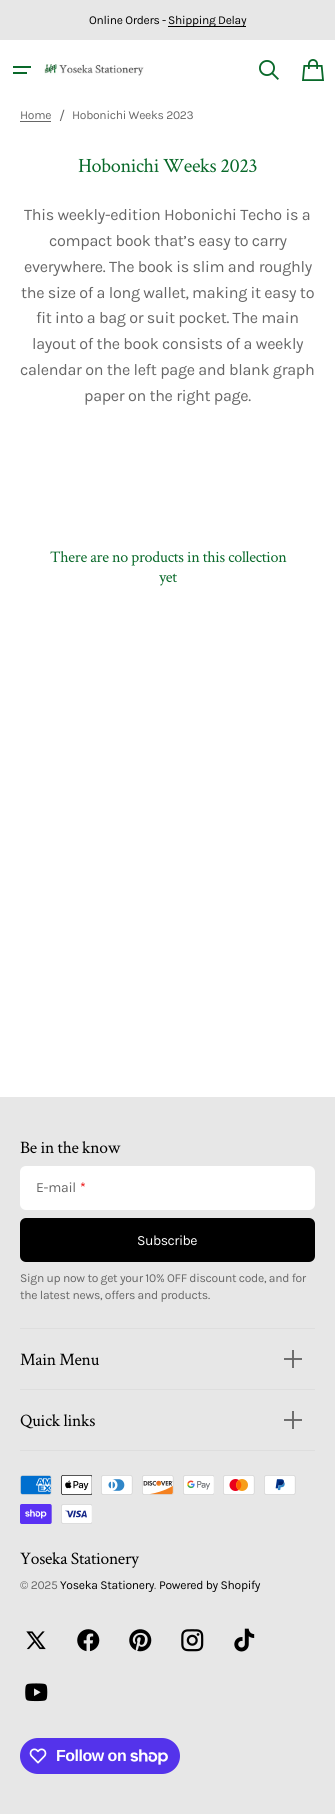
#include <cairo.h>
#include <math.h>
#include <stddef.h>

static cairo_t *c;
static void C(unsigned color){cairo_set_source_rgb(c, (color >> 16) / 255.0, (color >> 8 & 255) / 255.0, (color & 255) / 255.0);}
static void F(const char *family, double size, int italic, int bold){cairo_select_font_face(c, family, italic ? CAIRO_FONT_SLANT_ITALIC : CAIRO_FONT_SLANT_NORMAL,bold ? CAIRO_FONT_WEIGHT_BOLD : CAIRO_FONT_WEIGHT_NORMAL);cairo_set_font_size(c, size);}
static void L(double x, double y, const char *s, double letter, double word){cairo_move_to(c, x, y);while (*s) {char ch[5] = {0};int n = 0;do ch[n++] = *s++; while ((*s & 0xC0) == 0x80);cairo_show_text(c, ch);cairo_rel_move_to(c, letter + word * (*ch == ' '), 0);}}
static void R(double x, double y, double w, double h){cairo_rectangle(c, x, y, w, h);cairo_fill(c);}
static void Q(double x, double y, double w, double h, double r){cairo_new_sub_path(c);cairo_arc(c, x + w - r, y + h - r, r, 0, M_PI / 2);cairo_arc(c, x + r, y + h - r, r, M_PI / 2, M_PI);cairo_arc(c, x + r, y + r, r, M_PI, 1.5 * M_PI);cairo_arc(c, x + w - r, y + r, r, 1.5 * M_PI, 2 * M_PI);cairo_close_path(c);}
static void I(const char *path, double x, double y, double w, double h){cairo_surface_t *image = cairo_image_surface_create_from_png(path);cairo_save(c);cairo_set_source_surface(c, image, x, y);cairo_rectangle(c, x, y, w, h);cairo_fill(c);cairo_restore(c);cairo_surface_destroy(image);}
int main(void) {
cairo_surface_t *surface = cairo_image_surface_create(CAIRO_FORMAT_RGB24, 335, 1814);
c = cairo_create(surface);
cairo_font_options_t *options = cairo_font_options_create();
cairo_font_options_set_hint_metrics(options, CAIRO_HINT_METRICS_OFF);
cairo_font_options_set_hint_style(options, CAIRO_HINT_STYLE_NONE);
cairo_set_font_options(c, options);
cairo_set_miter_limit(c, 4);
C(0xffffff);
cairo_paint(c);
C(0xe7e7e7);
R(0,0,335,40);
F("Karla",12,0,0);
C(0x000000);
L(89,24,"Online Orders -",-.28,0);
R(168,26,78,1);
L(168,24,"Shipping Delay",-.28,0);
C(0x09692a);
R(13,66,18,2);
R(13,72,14,2);
I("1.png",44,64,100,12);
I("2.png",259,60,20,20);
I("3.png",302,59,22,22);
F("Karla",12.1,0,0);
C(0x666666);
L(20,119,"Home",-.28,0);
R(20,121,31,1);
F("Karla",14,0,0);
L(59,120,"/",-.3,0);
F("Karla",12.1,0,0);
L(72,119,"Hobonichi Weeks 2023",-.28,0);
F("Crimson Text",20.25,0,0);
C(0x09692a);
L(78,172,"Hobonichi Weeks 2023",-.4,0);
F("Karla",16.1,0,0);
C(0x666666);
L(24,220,"This weekly-edition Hobonichi Techo is a",-.28,0);
L(49,246,"compact book that’s easy to carry",-.28,0);
L(24,272,"everywhere. The book is slim and roughly",-.28,0);
L(21,298,"the size of a long wallet, making it easy to",-.28,0);
L(36,323,"fit into a bag or suit pocket. The main",-.28,0);
L(32,349,"layout of the book consists of a weekly",-.28,0);
L(20,375,"calendar on the left page and blank graph",-.28,0);
L(84,401,"paper on the right page.",-.28,0);
F("Crimson Text",16.1,0,0);
C(0x09692a);
L(50,562,"There are no products in this collection",-.3,0);
L(159,582,"yet",-.3,0);
C(0xe7e7e7);
R(0,1097,335,717);
F("Crimson Text",17.5,0,0);
C(0x000000);
L(20,1153,"Be in the know",-.3,0);
C(0xffffff);
Q(20,1166,295,44,6);
cairo_fill(c);
F("Karla",14,0,0);
C(0x666666);
L(36,1192,"E-mail",-.28,0);
C(0xea0202);
L(80,1192,"*",-.28,0);
C(0x000000);
Q(20,1218,295,44,6);
cairo_fill(c);
C(0xffffff);
L(137,1245,"Subscribe",-.5,0);
F("Karla",12.1,0,0);
C(0x666666);
L(20,1282,"Sign up now to get your 10% OFF discount code, and for",-.28,0);
L(20,1299,"the latest news, offers and products.",-.28,0);
C(0xdedede);
R(20,1328,295,1);
R(20,1389,295,1);
F("Crimson Text",17.5,0,0);
C(0x000000);
L(20,1365,"Main Menu",-.3,0);
I("4.png",284,1350,18,18);
C(0xdedede);
R(20,1450,295,1);
C(0x000000);
L(20,1426,"Quick links",-.3,0);
I("4.png",284,1411,18,18);
I("5.png",20,1475,32,20);
I("6.png",61,1475,31,20);
I("7.png",101,1475,32,20);
I("8.png",142,1475,32,20);
I("9.png",183,1475,31,20);
I("10.png",223,1475,32,20);
I("11.png",264,1475,32,20);
I("12.png",20,1504,32,20);
I("13.png",61,1504,31,20);
L(20,1564,"Yoseka Stationery",-.3,0);
F("Karla",12.1,0,0);
C(0x666666);
L(20,1589,"© 2025",-.28,0);
C(0x000000);
L(60,1589,"Yoseka Stationery",-.28,0);
L(159,1589,"Powered by Shopify",-.28,0);
C(0x666666);
L(154,1589,".",-.28,0);
I("14.png",26,1631,20,19);
I("15.png",77,1629,23,23);
I("16.png",129,1629,23,23);
I("17.png",181,1629,23,23);
I("18.png",234,1628,21,24);
I("19.png",25,1683,23,19);
C(0x5433eb);
Q(20,1738,160,36,18);
cairo_fill(c);
I("20.png",29,1748,18,16);
F("Liberation Sans",16,0,1);
C(0xffffff);
L(56,1761,"Follow on",-.5,0);
I("21.png",130,1749,38,16);
cairo_surface_write_to_png(surface, "o.png");
cairo_font_options_destroy(options);
cairo_destroy(c);
cairo_surface_destroy(surface);
return 0;
}
